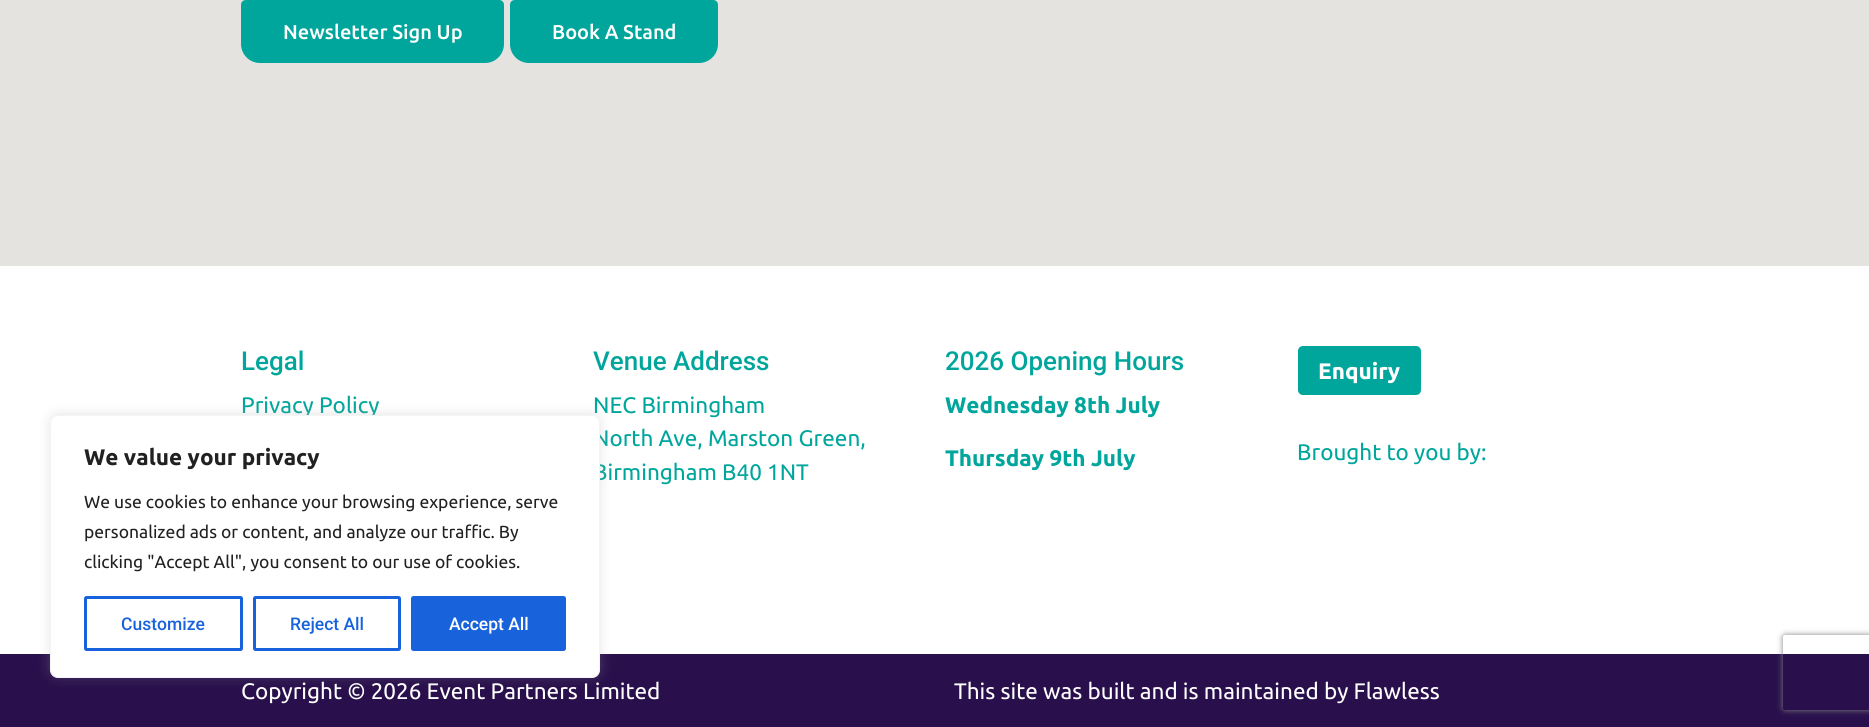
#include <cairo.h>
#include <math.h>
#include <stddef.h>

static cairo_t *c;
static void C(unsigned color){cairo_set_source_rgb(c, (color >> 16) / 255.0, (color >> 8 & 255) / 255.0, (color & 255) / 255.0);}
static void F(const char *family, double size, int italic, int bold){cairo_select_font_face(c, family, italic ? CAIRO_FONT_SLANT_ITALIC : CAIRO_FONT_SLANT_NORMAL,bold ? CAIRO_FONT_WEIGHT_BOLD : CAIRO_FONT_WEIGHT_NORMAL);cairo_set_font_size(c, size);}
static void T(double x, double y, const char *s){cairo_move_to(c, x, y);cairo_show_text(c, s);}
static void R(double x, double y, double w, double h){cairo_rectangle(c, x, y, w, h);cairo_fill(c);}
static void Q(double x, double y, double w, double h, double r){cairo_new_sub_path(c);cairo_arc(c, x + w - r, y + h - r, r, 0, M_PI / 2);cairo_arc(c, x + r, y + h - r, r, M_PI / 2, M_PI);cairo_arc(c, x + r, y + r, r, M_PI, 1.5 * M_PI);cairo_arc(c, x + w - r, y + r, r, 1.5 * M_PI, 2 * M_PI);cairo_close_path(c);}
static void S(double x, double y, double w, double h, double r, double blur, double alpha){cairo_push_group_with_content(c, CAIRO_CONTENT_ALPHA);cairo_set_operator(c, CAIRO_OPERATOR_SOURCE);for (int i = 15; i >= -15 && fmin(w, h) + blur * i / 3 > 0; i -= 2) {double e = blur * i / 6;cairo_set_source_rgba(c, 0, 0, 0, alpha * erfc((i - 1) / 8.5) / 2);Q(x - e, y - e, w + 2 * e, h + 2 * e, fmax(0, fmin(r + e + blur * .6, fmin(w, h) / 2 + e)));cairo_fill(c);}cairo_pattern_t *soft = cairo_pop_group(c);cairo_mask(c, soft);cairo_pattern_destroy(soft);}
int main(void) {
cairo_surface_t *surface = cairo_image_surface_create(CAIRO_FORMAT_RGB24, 1869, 727);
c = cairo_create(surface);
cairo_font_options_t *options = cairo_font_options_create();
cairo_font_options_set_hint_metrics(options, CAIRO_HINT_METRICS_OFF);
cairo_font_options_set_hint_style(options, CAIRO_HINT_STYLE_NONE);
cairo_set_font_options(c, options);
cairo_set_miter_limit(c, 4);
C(0xffffff);
cairo_paint(c);
C(0xe5e3df);
R(0,0,1869,266);
C(0x00a69c);
cairo_new_path(c);
cairo_move_to(c,246,0);
cairo_line_to(c,499,0);
cairo_curve_to(c,502,0,504,2,504,5);
cairo_line_to(c,504,44);
cairo_curve_to(c,504,54.5,495.5,63,485,63);
cairo_line_to(c,260,63);
cairo_curve_to(c,249.5,63,241,54.5,241,44);
cairo_line_to(c,241,5);
cairo_curve_to(c,241,2,243,0,246,0);
cairo_close_path(c);
cairo_fill(c);
F("Ubuntu Medium",20,0,0);
C(0xffffff);
T(283,39,"Newsletter Sign Up");
C(0x00a69c);
cairo_new_path(c);
cairo_move_to(c,515,0);
cairo_line_to(c,713,0);
cairo_curve_to(c,716,0,718,2,718,5);
cairo_line_to(c,718,44);
cairo_curve_to(c,718,54.5,709.5,63,699,63);
cairo_line_to(c,529,63);
cairo_curve_to(c,518.5,63,510,54.5,510,44);
cairo_line_to(c,510,5);
cairo_curve_to(c,510,2,512,0,515,0);
cairo_close_path(c);
cairo_fill(c);
C(0xffffff);
T(552,39,"Book A Stand");
F("Roboto Medium",26,0,0);
C(0x00a69c);
T(241,370,"Legal");
F("Ubuntu",22.5,0,0);
T(241,413,"Privacy Policy");
F("Roboto Medium",26,0,0);
T(593,370,"Venue Address");
F("Ubuntu",22.5,0,0);
T(593,413,"NEC Birmingham");
T(593,446,"North Ave, Marston Green,");
T(593,480,"Birmingham B40 1NT");
F("Roboto Medium",26,0,0);
T(945,370,"2026 Opening Hours");
F("Ubuntu",22.5,0,1);
T(945,413,"Wednesday 8th July");
T(945,466,"Thursday 9th July");
Q(1298,346,123,49,5);
cairo_fill(c);
C(0xffffff);
T(1318,379,"Enquiry");
F("Ubuntu",22.5,0,0);
C(0x00a69c);
T(1297,460,"Brought to you by:");
C(0x29104c);
R(0,654,1869,73);
C(0xffffff);
T(241,699,"Copyright © 2026 Event Partners Limited");
T(954,699,"This site was built and is maintained by Flawless");
C(0xacabab);
S(50,414,550,262,8,6,.3);
C(0xffffff);
Q(50.5,415.5,549,262,7.5);
cairo_fill_preserve(c);
C(0xf4f4f4);
cairo_set_line_width(c,1);
cairo_stroke(c);
F("Ubuntu",22.5,0,1);
C(0x212121);
T(84,465,"We value your privacy");
F("Ubuntu",17.5,0,0);
T(84,508,"We use cookies to enhance your browsing experience, serve");
T(84,538,"personalized ads or content, and analyze our traffic. By");
T(84,568,"clicking \"Accept All\", you consent to our use of cookies.");
Q(85.5,597.5,156,52,1);
C(0x1863dc);
cairo_set_line_width(c,3);
cairo_stroke(c);
F("Roboto Medium",17.5,0,0);
T(121,630,"Customize");
Q(254.5,597.5,145,52,1);
cairo_stroke(c);
T(290,630,"Reject All");
Q(412.5,597.5,152,52,1);
cairo_fill_preserve(c);
cairo_stroke(c);
C(0xffffff);
T(449,630,"Accept All");
cairo_save(c);
cairo_set_fill_rule(c,CAIRO_FILL_RULE_EVEN_ODD);
cairo_new_path(c);
cairo_move_to(c,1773,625);
cairo_line_to(c,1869,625);
cairo_line_to(c,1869,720);
cairo_line_to(c,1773,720);
cairo_close_path(c);
cairo_move_to(c,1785.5,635);
cairo_line_to(c,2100.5,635);
cairo_curve_to(c,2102,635,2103,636,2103,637.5);
cairo_line_to(c,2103,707.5);
cairo_curve_to(c,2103,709,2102,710,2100.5,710);
cairo_line_to(c,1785.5,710);
cairo_curve_to(c,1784,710,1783,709,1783,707.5);
cairo_line_to(c,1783,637.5);
cairo_curve_to(c,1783,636,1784,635,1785.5,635);
cairo_close_path(c);
cairo_clip(c);
C(0x808080);
S(1783,635,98,75,2.5,3,1);
cairo_restore(c);
cairo_surface_write_to_png(surface, "o.png");
cairo_font_options_destroy(options);
cairo_destroy(c);
cairo_surface_destroy(surface);
return 0;
}
